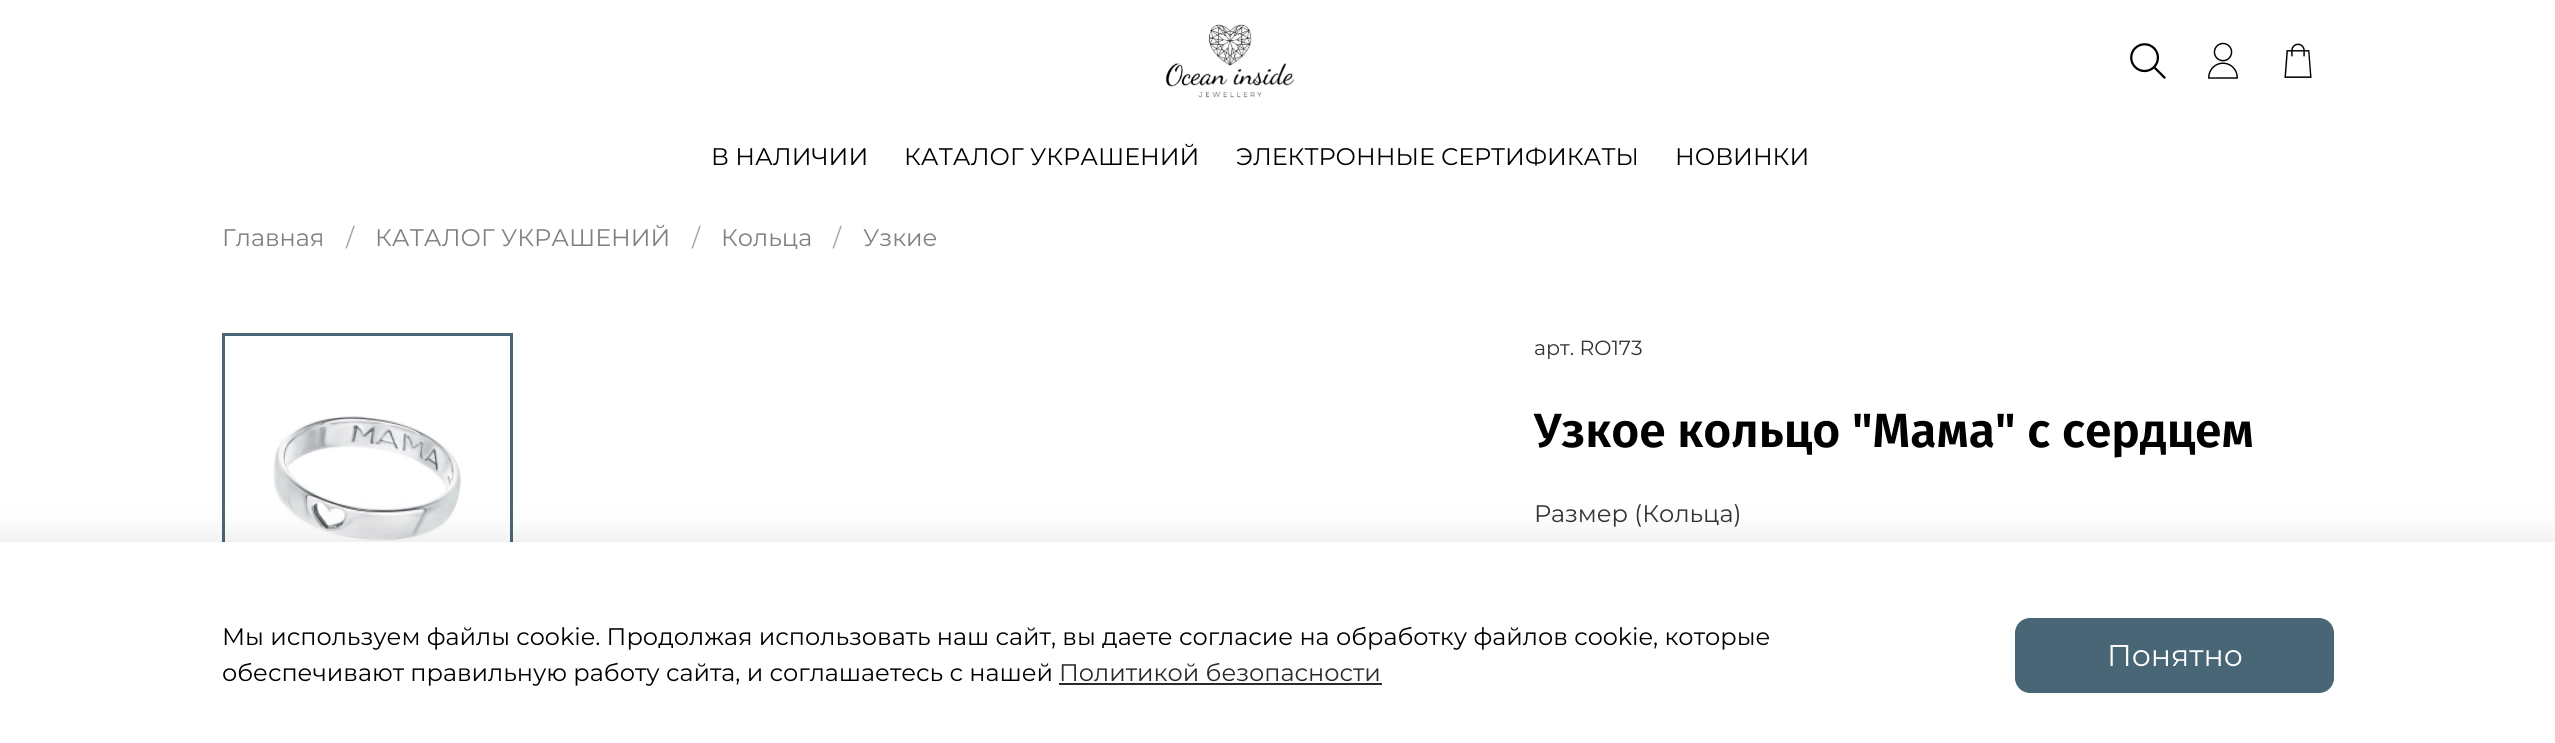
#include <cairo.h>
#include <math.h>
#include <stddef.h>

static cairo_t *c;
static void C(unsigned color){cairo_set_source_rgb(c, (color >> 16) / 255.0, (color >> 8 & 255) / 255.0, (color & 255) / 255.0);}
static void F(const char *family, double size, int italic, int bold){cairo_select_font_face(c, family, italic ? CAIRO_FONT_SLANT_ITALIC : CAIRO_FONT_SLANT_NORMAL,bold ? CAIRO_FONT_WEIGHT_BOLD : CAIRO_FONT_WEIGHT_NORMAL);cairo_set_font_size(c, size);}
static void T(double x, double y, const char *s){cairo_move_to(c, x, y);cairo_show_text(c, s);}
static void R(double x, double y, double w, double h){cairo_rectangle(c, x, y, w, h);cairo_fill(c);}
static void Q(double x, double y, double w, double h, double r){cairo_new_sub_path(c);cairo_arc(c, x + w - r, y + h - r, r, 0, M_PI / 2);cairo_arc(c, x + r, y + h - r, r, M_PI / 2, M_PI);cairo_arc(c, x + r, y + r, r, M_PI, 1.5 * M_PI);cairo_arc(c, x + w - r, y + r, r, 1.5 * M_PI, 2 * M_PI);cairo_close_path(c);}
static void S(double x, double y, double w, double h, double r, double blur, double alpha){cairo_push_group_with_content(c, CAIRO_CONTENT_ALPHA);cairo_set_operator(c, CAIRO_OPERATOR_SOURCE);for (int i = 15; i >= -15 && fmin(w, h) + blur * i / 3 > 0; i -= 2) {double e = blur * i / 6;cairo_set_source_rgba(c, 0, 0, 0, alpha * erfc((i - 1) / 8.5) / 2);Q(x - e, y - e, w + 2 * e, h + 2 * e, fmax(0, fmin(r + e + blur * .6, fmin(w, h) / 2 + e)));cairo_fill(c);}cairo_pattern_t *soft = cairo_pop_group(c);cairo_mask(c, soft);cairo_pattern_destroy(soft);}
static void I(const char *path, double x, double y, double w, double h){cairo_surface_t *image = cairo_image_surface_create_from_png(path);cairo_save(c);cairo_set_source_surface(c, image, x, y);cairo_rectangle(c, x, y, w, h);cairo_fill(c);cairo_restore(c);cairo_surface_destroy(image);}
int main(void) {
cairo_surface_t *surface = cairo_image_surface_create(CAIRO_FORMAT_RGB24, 2555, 743);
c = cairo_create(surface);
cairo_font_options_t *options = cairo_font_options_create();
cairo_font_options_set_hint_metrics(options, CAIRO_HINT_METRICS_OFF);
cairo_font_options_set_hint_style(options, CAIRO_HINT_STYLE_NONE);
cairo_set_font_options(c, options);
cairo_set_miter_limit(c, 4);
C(0xffffff);
cairo_paint(c);
I("1.png",1166,24,129,74);
I("2.png",2130,43,36,36);
I("3.png",2208,42,30,37);
I("4.png",2284,43,28,35);
F("Montserrat",24,0,0);
C(0x000000);
T(711,165,"В НАЛИЧИИ");
T(904,165,"КАТАЛОГ УКРАШЕНИЙ");
T(1236,165,"ЭЛЕКТРОННЫЕ СЕРТИФИКАТЫ");
T(1675,165,"НОВИНКИ");
C(0x808080);
T(222,246,"Главная");
C(0xa6a6a6);
T(346,246,"/");
C(0x808080);
T(375,246,"КАТАЛОГ УКРАШЕНИЙ");
C(0xa6a6a6);
T(692,246,"/");
C(0x808080);
T(721,246,"Кольца");
C(0xa6a6a6);
T(833,246,"/");
C(0x808080);
T(863,246,"Узкие");
I("5.png",273,416,188,125);
cairo_rectangle(c,223.5,334.5,288,288);
C(0x486675);
cairo_set_line_width(c,3);
cairo_stroke(c);
F("Montserrat",20.5,0,0);
C(0x333333);
T(1534,355,"арт. RO173");
F("Fira Sans SemiBold",48,0,0);
C(0x000000);
T(1534,447,"Узкое кольцо \"Мама\" с сердцем");
F("Montserrat",24,0,0);
C(0x333333);
T(1534,522,"Размер (Кольца)");
C(0x000000);
S(-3,537,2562,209,0,17,.09);
C(0xffffff);
R(0,542,2555,201);
C(0x000000);
T(222,645,"Мы используем файлы cookie. Продолжая использовать наш сайт, вы даете согласие на обработку файлов cookie, которые");
T(222,681,"обеспечивают правильную работу сайта, и соглашаетесь с нашей");
C(0x2b2b2b);
T(1059,681,"Политикой безопасности");
R(1059,683,323,2);
C(0x486675);
Q(2015,618,319,75,15);
cairo_fill(c);
F("Montserrat",30,0,0);
C(0xffffff);
T(2107,666,"Понятно");
cairo_surface_write_to_png(surface, "o.png");
cairo_font_options_destroy(options);
cairo_destroy(c);
cairo_surface_destroy(surface);
return 0;
}
